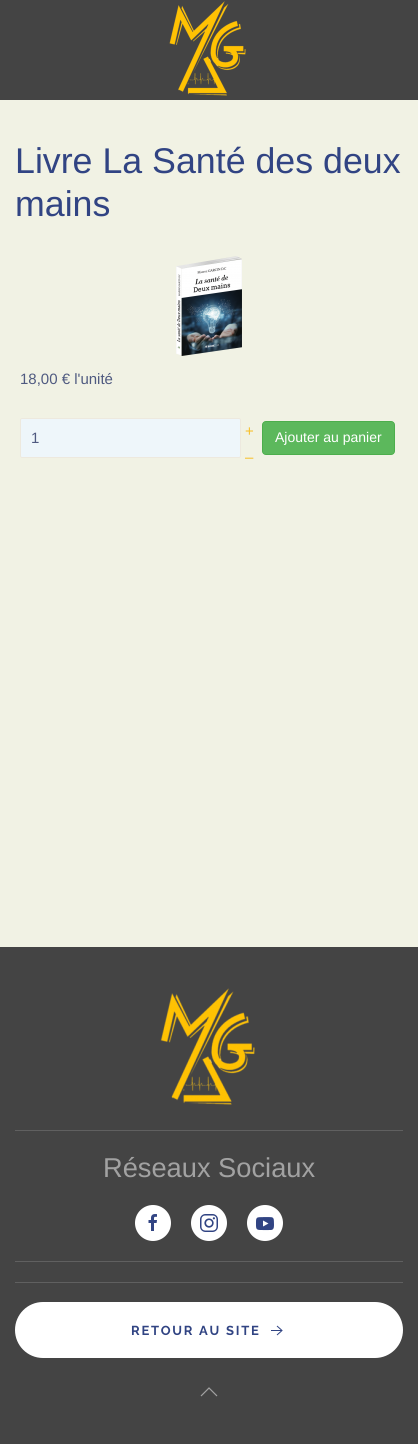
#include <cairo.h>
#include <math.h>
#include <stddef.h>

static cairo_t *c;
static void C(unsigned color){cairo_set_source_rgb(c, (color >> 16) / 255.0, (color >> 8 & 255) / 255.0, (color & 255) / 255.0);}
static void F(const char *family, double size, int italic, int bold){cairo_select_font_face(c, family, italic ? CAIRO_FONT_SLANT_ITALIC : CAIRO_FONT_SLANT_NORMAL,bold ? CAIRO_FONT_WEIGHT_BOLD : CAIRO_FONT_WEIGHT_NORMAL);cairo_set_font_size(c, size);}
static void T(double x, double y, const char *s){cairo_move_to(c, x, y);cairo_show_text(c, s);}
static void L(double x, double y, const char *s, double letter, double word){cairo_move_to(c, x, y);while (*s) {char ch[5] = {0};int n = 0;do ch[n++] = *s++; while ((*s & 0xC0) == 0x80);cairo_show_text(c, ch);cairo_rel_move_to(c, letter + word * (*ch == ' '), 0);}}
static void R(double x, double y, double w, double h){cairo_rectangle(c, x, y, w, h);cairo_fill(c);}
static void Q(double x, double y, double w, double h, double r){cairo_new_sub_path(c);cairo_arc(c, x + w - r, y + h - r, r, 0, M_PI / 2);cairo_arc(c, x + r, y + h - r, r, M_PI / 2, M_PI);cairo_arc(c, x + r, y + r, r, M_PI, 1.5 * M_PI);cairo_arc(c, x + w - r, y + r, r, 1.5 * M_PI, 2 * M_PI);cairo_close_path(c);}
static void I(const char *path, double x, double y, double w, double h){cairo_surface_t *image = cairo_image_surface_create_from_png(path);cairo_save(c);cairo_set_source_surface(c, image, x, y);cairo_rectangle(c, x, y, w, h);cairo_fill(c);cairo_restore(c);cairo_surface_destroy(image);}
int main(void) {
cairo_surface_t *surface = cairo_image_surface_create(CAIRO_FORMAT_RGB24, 418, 1444);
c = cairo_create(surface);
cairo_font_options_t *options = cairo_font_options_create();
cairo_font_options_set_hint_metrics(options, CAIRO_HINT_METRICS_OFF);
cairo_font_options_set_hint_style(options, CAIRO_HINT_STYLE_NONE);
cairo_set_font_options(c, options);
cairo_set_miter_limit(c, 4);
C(0xf1f2e4);
cairo_paint(c);
C(0x444444);
R(0,0,418,100);
I("1.png",169,1,77,95);
F("Liberation Sans",35.75,0,0);
C(0x314483);
T(15,173,"Livre La Santé des deux");
T(15,216,"mains");
I("2.png",176,256,66,100);
F("Liberation Sans",15,0,0);
C(0x4f5a80);
T(20,384,"18,00 € l'unité");
C(0xeef6fa);
Q(20.5,418.5,220,39,1.5);
cairo_fill_preserve(c);
C(0xede9de);
cairo_set_line_width(c,1);
cairo_stroke(c);
C(0x4f5a80);
T(31,443,"1");
C(0xf7bf29);
T(245,436,"+");
T(245,462,"–");
C(0x5cb85c);
Q(262.5,421.5,132,33,3.5);
cairo_fill_preserve(c);
C(0x4cae4c);
cairo_stroke(c);
F("Liberation Sans",14,0,0);
C(0xffffff);
T(275,442,"Ajouter au panier");
C(0x444444);
R(0,947,418,497);
I("3.png",160,988,95,117);
C(0x606060);
R(15,1130,388,1);
F("Liberation Sans",27.25,0,0);
C(0xa2a2a2);
T(103,1177,"Réseaux Sociaux");
C(0xffffff);
cairo_new_path(c);
cairo_arc(c,153,1223,18,0,2 * M_PI);
cairo_fill(c);
I("4.png",148,1214,9,17);
cairo_arc(c,209,1223,18,0,2 * M_PI);
cairo_fill(c);
I("5.png",200,1214,18,18);
cairo_arc(c,265,1223,18,0,2 * M_PI);
cairo_fill(c);
I("6.png",256,1217,18,14);
C(0x606060);
R(15,1261,388,1);
R(15,1282,388,1);
C(0xffffff);
Q(15,1302,388,56,28);
cairo_fill(c);
F("Raleway Thin",13,0,0);
C(0x314483);
L(131,1335,"RETOUR AU SITE",1.75,0);
I("7.png",271,1325,12,11);
cairo_new_path(c);
cairo_move_to(c,201,1396);
cairo_line_to(c,209,1388);
cairo_line_to(c,217,1396);
C(0xa2a2a2);
cairo_set_line_width(c,1.2);
cairo_stroke(c);
cairo_surface_write_to_png(surface, "o.png");
cairo_font_options_destroy(options);
cairo_destroy(c);
cairo_surface_destroy(surface);
return 0;
}
